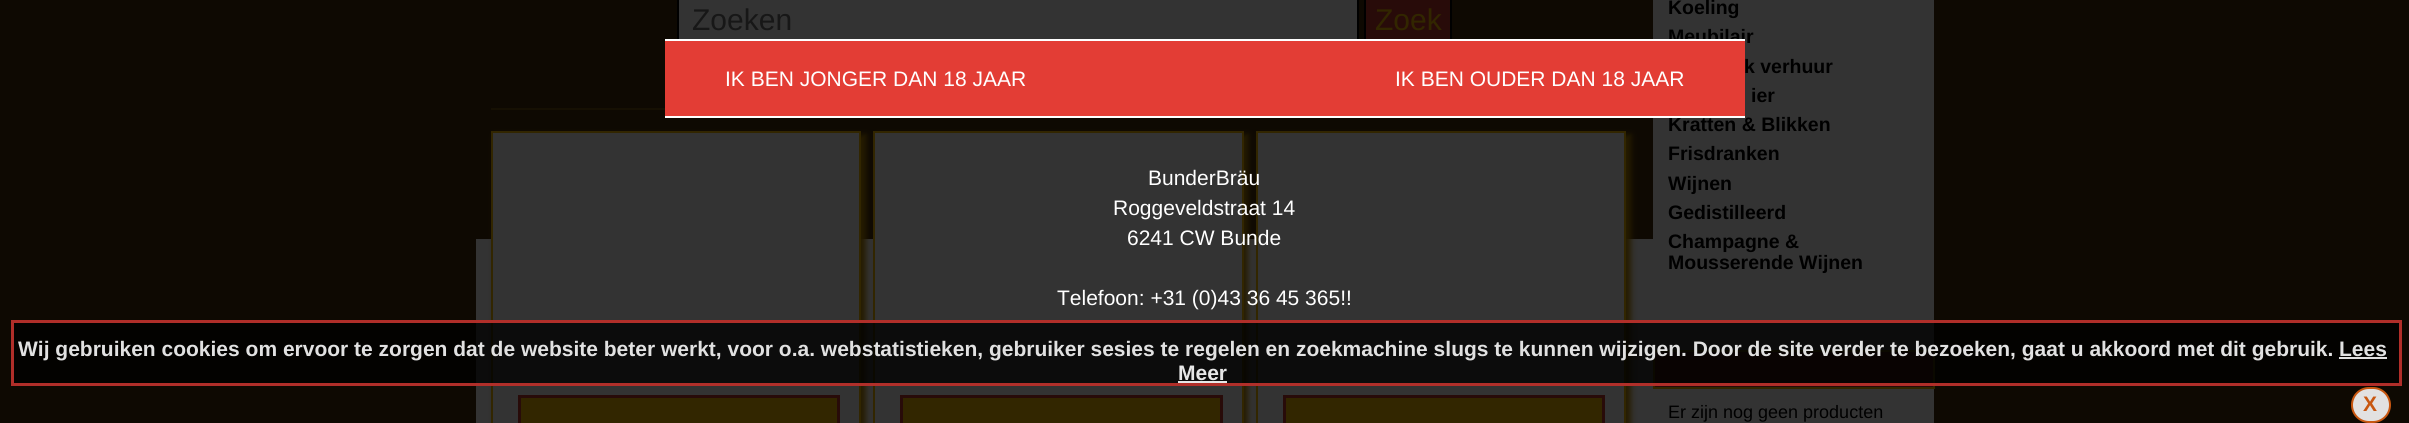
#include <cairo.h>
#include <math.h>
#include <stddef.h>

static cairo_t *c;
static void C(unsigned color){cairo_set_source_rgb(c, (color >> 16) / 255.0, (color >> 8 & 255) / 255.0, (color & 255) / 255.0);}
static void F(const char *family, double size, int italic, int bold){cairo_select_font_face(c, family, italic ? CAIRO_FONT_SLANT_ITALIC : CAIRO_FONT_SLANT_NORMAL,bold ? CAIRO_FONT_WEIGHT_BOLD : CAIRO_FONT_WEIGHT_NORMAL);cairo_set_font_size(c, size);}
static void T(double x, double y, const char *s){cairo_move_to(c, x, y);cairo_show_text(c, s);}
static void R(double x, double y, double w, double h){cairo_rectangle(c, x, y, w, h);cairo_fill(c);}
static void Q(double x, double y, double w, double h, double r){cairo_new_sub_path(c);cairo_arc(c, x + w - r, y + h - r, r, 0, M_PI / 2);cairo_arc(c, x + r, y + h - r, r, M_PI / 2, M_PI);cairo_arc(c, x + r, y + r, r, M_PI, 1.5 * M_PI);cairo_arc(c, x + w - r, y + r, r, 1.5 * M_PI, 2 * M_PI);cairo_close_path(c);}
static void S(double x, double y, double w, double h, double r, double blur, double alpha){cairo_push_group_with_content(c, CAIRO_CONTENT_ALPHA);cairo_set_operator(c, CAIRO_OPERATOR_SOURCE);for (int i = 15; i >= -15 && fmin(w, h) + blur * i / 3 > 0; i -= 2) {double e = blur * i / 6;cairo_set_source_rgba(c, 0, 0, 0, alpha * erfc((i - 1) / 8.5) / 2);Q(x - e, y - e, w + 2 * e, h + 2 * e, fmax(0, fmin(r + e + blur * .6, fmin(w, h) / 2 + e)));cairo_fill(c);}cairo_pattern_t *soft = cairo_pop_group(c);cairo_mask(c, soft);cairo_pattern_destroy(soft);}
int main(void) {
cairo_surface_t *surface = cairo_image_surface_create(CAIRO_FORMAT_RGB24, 2409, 423);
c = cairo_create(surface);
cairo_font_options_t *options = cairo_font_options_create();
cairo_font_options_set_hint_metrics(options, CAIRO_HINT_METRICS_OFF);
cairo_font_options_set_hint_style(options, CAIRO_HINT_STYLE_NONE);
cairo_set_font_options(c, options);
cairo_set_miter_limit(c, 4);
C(0x0e0902);
cairo_paint(c);
C(0x333333);
R(476,239,1177,184);
R(679,0,678,39);
cairo_rectangle(c,678,-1,680,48);
C(0x000000);
cairo_stroke(c);
F("Liberation Sans",30,0,0);
C(0x171717);
T(692,30,"Zoeken");
C(0x280b09);
R(1366,0,84,39);
cairo_rectangle(c,1365,-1,86,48);
C(0x000000);
cairo_stroke(c);
C(0x322600);
T(1375,30,"Zoek");
C(0x161003);
R(491,108,174,2);
C(0x261c00);
S(495,135,371,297,0,3,1);
C(0x333333);
cairo_rectangle(c,492,132,368,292);
cairo_fill_preserve(c);
C(0x322600);
cairo_stroke(c);
cairo_rectangle(c,519.5,396.5,319,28);
cairo_fill_preserve(c);
C(0x280b09);
cairo_set_line_width(c,3);
cairo_stroke(c);
C(0x261c00);
S(878,135,370,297,0,3,1);
C(0x333333);
cairo_rectangle(c,874,132,369,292);
cairo_fill_preserve(c);
C(0x322600);
cairo_set_line_width(c,2);
cairo_stroke(c);
cairo_rectangle(c,901.5,396.5,320,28);
cairo_fill_preserve(c);
C(0x280b09);
cairo_set_line_width(c,3);
cairo_stroke(c);
C(0x261c00);
S(1260,135,371,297,0,3,1);
C(0x333333);
cairo_rectangle(c,1257,132,368,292);
cairo_fill_preserve(c);
C(0x322600);
cairo_set_line_width(c,2);
cairo_stroke(c);
cairo_rectangle(c,1284.5,396.5,319,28);
cairo_fill_preserve(c);
C(0x280b09);
cairo_set_line_width(c,3);
cairo_stroke(c);
C(0x333333);
R(1653,0,281,423);
F("Liberation Sans",19.5,0,1);
C(0x000000);
T(1668,14,"Koeling");
T(1668,43,"Meubilair");
T(1744,73,"k verhuur");
T(1751,102,"ier");
T(1668,131,"Kratten & Blikken");
T(1668,160,"Frisdranken");
T(1668,190,"Wijnen");
T(1668,219,"Gedistilleerd");
T(1668,248,"Champagne &");
T(1668,269,"Mousserende Wijnen");
C(0x280b09);
cairo_rectangle(c,1654,351,280,37);
cairo_fill_preserve(c);
C(0x322600);
cairo_set_line_width(c,2);
cairo_stroke(c);
F("Liberation Sans",18,0,0);
C(0x000000);
T(1668,418,"Er zijn nog geen producten");
C(0xe33d35);
R(665,41,1080,75);
C(0xffffff);
R(665,39,1080,2);
R(665,116,1080,2);
F("Liberation Sans",21,0,0);
T(725,86,"IK BEN JONGER DAN 18 JAAR");
T(1395,86,"IK BEN OUDER DAN 18 JAAR");
T(1148,185,"BunderBräu");
T(1113,215,"Roggeveldstraat 14");
T(1127,245,"6241 CW Bunde");
T(1057,305,"Telefoon: +31 (0)43 36 45 365!!");
cairo_set_source_rgba(c,0,0,0,0.77);
R(11,320,2391,66);
cairo_rectangle(c,12.5,321.5,2388,63);
cairo_set_source_rgba(c,0.784,0.208,0.184,0.88);
cairo_set_line_width(c,3);
cairo_stroke(c);
F("Liberation Sans",21,0,1);
C(0xe1e1e1);
T(18,356,"Wij gebruiken cookies om ervoor te zorgen dat de website beter werkt, voor o.a. webstatistieken, gebruiker sesies te regelen en zoekmachine slugs te kunnen wijzigen. Door de site verder te bezoeken, gaat u akkoord met dit gebruik.");
T(2339,356,"Lees");
C(0xe2e1e1);
R(2339,357,48,2);
C(0xe7e7e7);
T(1178,380,"Meer");
R(1178,381,49,2);
C(0xe2e1e1);
Q(2352,388,38,34,17);
cairo_fill_preserve(c);
C(0xc85711);
cairo_set_line_width(c,2);
cairo_stroke(c);
T(2363,411,"X");
cairo_surface_write_to_png(surface, "o.png");
cairo_font_options_destroy(options);
cairo_destroy(c);
cairo_surface_destroy(surface);
return 0;
}
